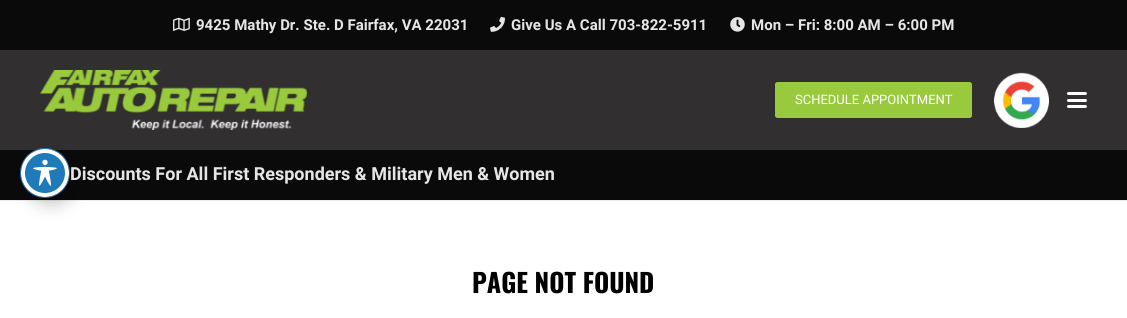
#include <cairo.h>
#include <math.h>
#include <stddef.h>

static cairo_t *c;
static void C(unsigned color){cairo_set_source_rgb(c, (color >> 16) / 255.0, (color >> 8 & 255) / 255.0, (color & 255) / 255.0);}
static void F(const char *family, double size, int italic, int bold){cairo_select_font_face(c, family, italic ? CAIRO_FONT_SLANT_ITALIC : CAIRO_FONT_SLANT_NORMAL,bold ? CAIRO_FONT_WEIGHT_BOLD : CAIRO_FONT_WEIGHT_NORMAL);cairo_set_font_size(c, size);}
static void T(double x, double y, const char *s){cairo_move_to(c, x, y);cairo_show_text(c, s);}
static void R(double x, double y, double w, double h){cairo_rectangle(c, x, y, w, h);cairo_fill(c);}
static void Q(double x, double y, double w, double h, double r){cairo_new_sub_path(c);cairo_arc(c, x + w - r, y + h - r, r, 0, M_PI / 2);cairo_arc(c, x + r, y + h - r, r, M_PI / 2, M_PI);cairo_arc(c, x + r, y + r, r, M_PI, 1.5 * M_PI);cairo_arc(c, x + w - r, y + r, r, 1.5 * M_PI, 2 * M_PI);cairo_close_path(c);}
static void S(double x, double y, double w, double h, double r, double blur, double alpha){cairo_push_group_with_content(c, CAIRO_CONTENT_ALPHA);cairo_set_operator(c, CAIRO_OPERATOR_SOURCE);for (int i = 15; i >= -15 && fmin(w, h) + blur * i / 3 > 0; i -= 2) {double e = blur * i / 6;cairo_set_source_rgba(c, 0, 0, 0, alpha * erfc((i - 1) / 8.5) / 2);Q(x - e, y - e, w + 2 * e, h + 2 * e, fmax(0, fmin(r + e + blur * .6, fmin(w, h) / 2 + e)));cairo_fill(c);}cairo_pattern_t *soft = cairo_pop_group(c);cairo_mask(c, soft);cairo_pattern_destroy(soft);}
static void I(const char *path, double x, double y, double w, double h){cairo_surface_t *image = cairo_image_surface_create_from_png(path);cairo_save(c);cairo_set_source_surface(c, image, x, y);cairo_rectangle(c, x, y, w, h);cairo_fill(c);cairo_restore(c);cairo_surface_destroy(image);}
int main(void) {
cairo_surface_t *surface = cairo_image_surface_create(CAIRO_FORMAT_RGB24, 1127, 318);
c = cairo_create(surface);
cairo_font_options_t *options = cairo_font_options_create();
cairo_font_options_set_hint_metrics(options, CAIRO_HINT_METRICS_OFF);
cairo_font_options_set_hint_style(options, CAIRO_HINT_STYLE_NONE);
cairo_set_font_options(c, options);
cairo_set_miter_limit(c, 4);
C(0xffffff);
cairo_paint(c);
C(0x312f2f);
R(0,50,1127,100);
C(0x0a0a0a);
R(0,150,1127,50);
cairo_arc(c,45,173,24.5,0,2 * M_PI);
C(0x1e7ab9);
cairo_set_line_width(c,1);
cairo_stroke(c);
C(0xebebeb);
R(0,200,1127,1);
C(0x000000);
S(27,157,48,48,24,8,.2);
C(0x1e7ab9);
cairo_arc(c,45,173,22,0,2 * M_PI);
cairo_fill_preserve(c);
C(0xffffff);
cairo_set_line_width(c,4);
cairo_stroke(c);
I("1.png",33,159,24,27);
C(0x0a0a0a);
R(0,0,1127,50);
I("2.png",173,17,17,14);
F("Heebo",15,0,1);
C(0xe5e5e5);
T(196,30,"9425 Mathy Dr. Ste. D Fairfax, VA 22031");
I("3.png",490,16,15,16);
T(511,30,"Give Us A Call 703-822-5911");
I("4.png",730,17,15,15);
T(751,30,"Mon – Fri: 8:00 AM – 6:00 PM");
I("5.png",40,70,267,60);
C(0x99ca3d);
Q(775,82,197,36,2.5);
cairo_fill(c);
F("Heebo",13,0,0);
C(0xffffff);
T(795,104,"SCHEDULE APPOINTMENT");
I("6.png",994,72,55,56);
Q(1067,99,20,3,1.5);
cairo_fill(c);
Q(1067,92,20,3,1.5);
cairo_fill(c);
Q(1067,105,20,3,1.5);
cairo_fill(c);
F("Heebo",18,0,1);
C(0xe5e5e5);
T(70,180,"Discounts For All First Responders & Military Men & Women");
F("Oswald",26,0,1);
C(0x000000);
T(472,293,"PAGE NOT FOUND");
cairo_surface_write_to_png(surface, "o.png");
cairo_font_options_destroy(options);
cairo_destroy(c);
cairo_surface_destroy(surface);
return 0;
}
